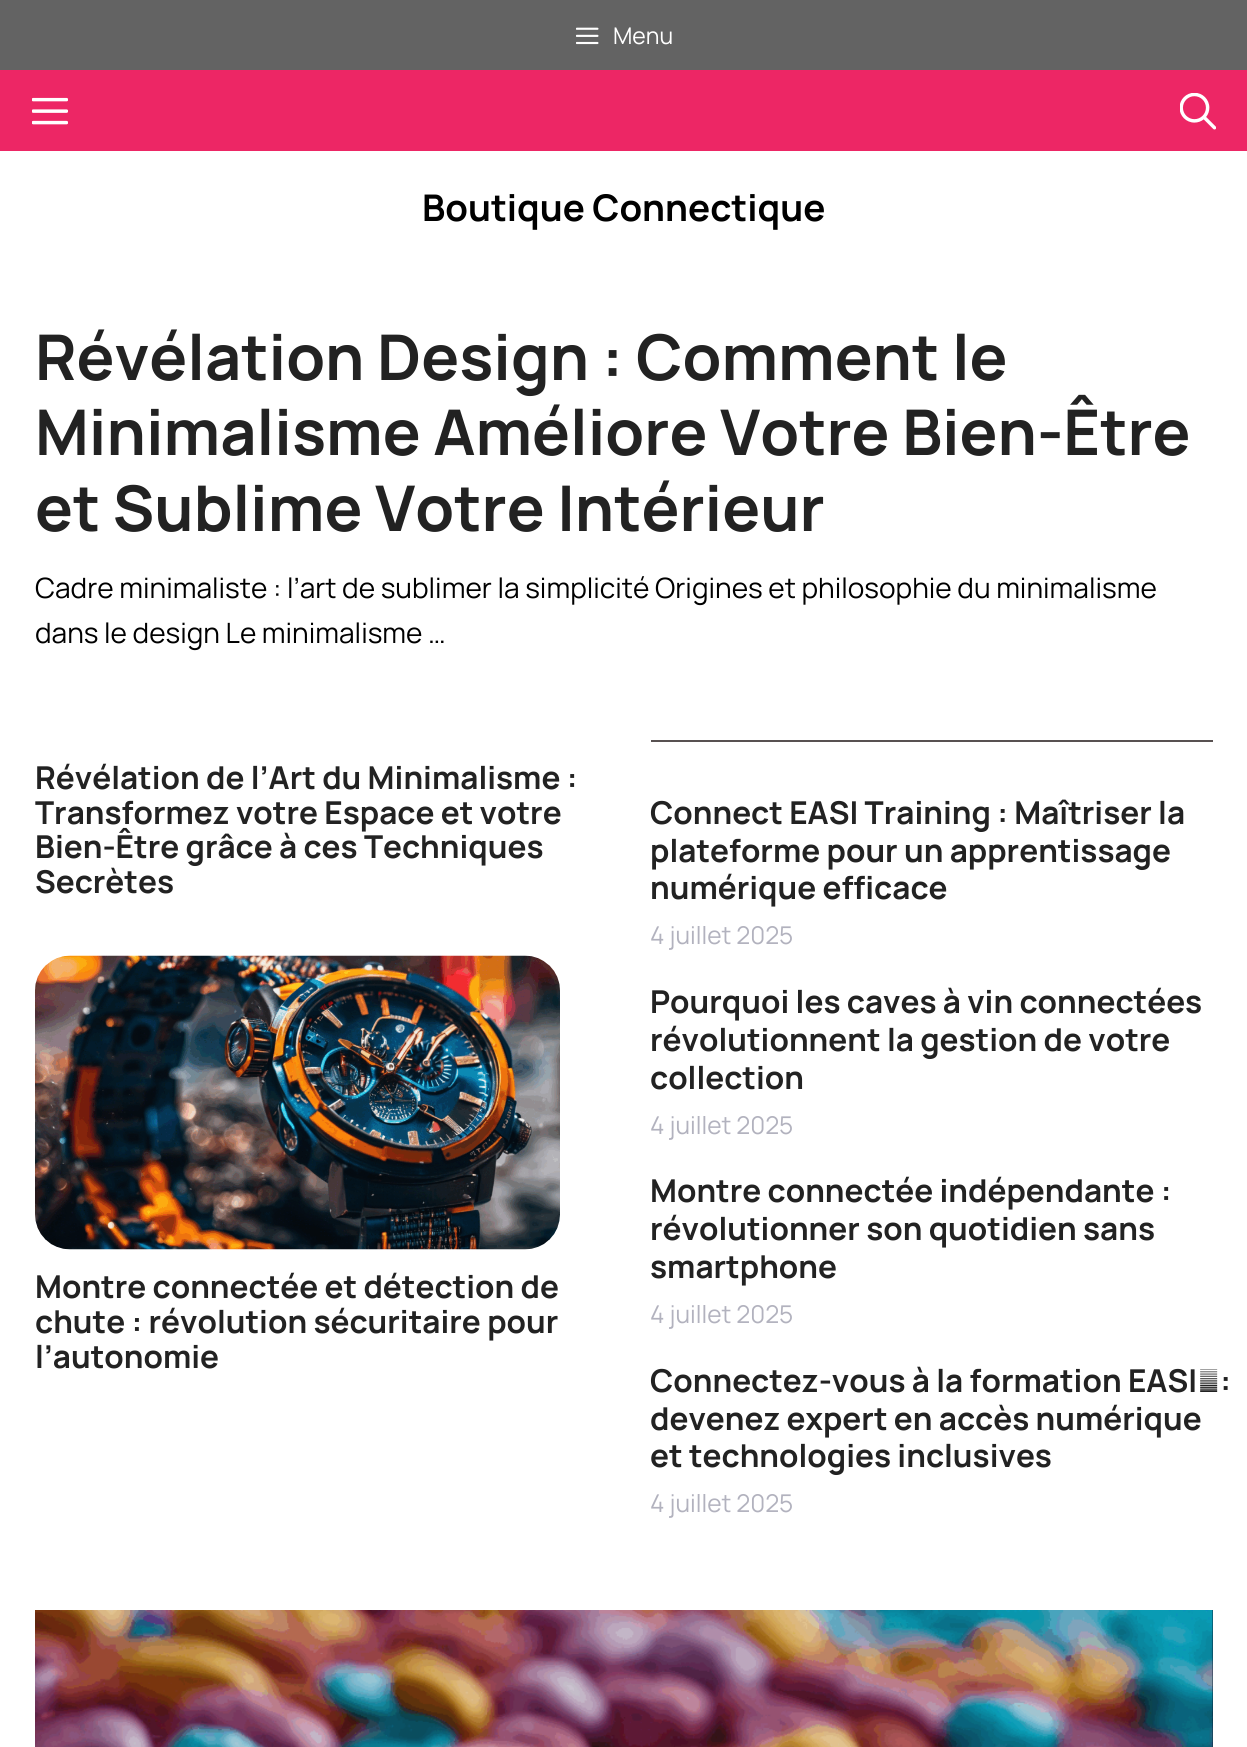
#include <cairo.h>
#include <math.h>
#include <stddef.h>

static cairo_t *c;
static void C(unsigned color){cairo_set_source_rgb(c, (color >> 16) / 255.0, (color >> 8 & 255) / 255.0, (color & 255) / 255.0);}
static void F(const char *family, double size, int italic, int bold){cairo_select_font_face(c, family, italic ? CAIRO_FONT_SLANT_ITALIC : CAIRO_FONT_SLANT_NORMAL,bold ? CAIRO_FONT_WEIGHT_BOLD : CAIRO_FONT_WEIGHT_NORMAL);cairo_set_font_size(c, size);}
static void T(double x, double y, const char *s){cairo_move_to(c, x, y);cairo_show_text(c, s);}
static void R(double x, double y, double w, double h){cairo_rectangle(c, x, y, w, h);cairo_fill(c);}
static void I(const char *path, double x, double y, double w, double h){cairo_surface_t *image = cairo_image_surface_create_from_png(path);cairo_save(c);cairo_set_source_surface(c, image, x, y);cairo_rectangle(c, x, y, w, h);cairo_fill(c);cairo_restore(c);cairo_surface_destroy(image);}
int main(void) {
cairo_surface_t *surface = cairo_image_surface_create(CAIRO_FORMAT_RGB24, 1247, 1747);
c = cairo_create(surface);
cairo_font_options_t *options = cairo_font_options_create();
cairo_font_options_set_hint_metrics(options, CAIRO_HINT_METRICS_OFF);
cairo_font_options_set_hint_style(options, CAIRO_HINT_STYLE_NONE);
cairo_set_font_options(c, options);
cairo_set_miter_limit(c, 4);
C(0xffffff);
cairo_paint(c);
C(0x636363);
R(0,0,1247,70);
I("1.png",576,27,23,18);
F("Manrope",23,0,0);
C(0xffffff);
T(613,44,"Menu");
C(0xed2665);
R(0,70,1247,81);
I("2.png",32,97,36,28);
I("3.png",1180,93,36,37);
F("Manrope",36.75,0,1);
C(0x000000);
T(422,221,"Boutique Connectique");
F("Manrope",63,0,1);
C(0x222222);
T(35,380,"Révélation Design : Comment le");
T(35,455,"Minimalisme Améliore Votre Bien-Être");
T(35,531,"et Sublime Votre Intérieur");
F("Manrope",28,0,0);
C(0x000000);
T(35,598,"Cadre minimaliste : l’art de sublimer la simplicité Origines et philosophie du minimalisme");
T(35,643,"dans le design Le minimalisme …");
F("Manrope",31.5,0,1);
C(0x222222);
T(35,789,"Révélation de l’Art du Minimalisme :");
T(35,824,"Transformez votre Espace et votre");
T(35,858,"Bien-Être grâce à ces Techniques");
T(35,893,"Secrètes");
I("4.png",35,955,525,295);
T(35,1298,"Montre connectée et détection de");
T(35,1333,"chute : révolution sécuritaire pour");
T(35,1368,"l’autonomie");
C(0x585151);
R(651,740,562,2);
C(0x222222);
T(650,824,"Connect EASI Training : Maîtriser la");
T(650,862,"plateforme pour un apprentissage");
T(650,899,"numérique efficace");
F("Manrope",24.5,0,0);
C(0xb2b2be);
T(650,944,"4 juillet 2025");
F("Manrope",31.5,0,1);
C(0x222222);
T(650,1013,"Pourquoi les caves à vin connectées");
T(650,1051,"révolutionnent la gestion de votre");
T(650,1089,"collection");
F("Manrope",24.5,0,0);
C(0xb2b2be);
T(650,1134,"4 juillet 2025");
F("Manrope",31.5,0,1);
C(0x222222);
T(650,1202,"Montre connectée indépendante :");
T(650,1240,"révolutionner son quotidien sans");
T(650,1278,"smartphone");
F("Manrope",24.5,0,0);
C(0xb2b2be);
T(650,1323,"4 juillet 2025");
F("Manrope",31.5,0,1);
C(0x222222);
T(650,1392,"Connectez-vous à la formation EASI :");
T(650,1430,"devenez expert en accès numérique");
T(650,1467,"et technologies inclusives");
F("Manrope",24.5,0,0);
C(0xb2b2be);
T(650,1512,"4 juillet 2025");
C(0x0a1f33);
R(35,1610,1178,137);
I("5.png",35,1610,1178,137);
cairo_surface_write_to_png(surface, "o.png");
cairo_font_options_destroy(options);
cairo_destroy(c);
cairo_surface_destroy(surface);
return 0;
}
